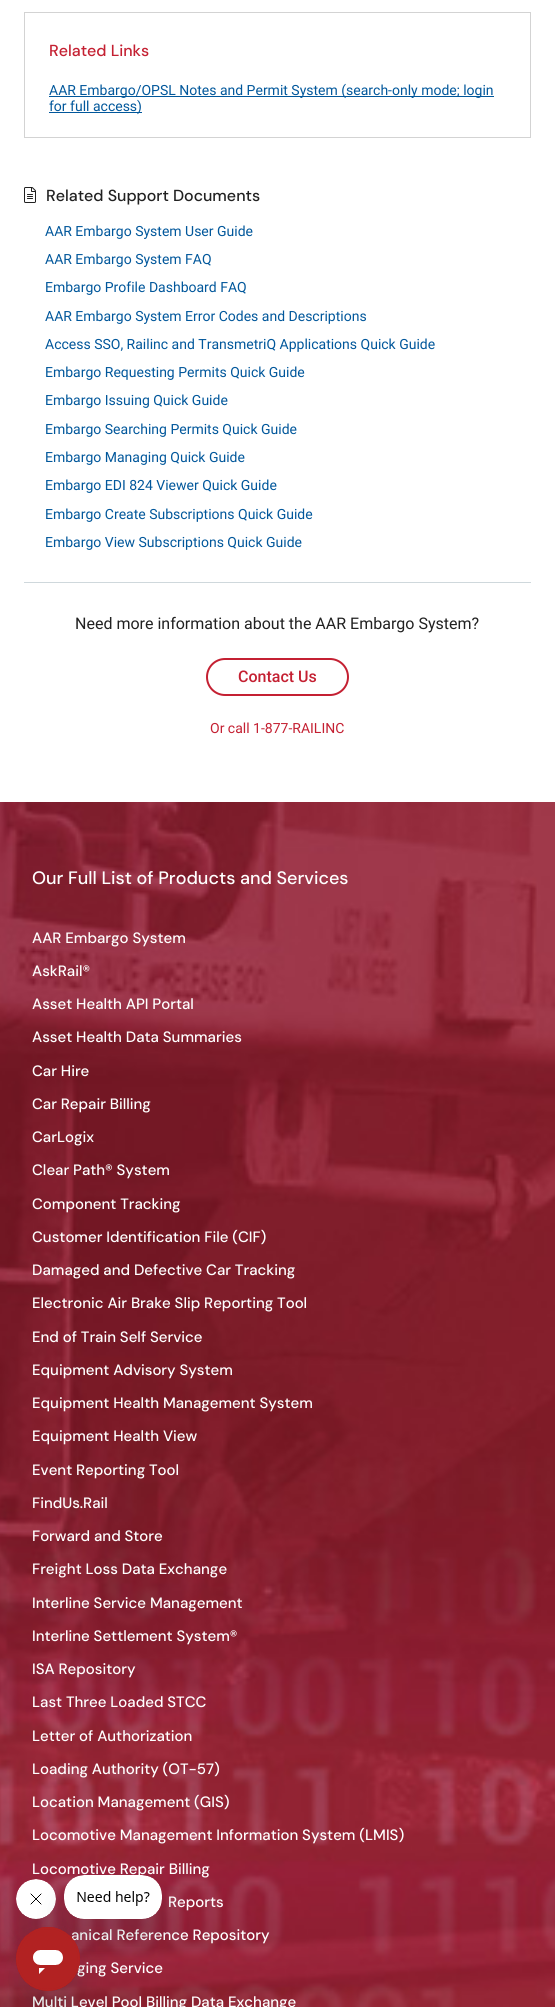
#include <cairo.h>
#include <math.h>
#include <stddef.h>

static cairo_t *c;
static void C(unsigned color){cairo_set_source_rgb(c, (color >> 16) / 255.0, (color >> 8 & 255) / 255.0, (color & 255) / 255.0);}
static void F(const char *family, double size, int italic, int bold){cairo_select_font_face(c, family, italic ? CAIRO_FONT_SLANT_ITALIC : CAIRO_FONT_SLANT_NORMAL,bold ? CAIRO_FONT_WEIGHT_BOLD : CAIRO_FONT_WEIGHT_NORMAL);cairo_set_font_size(c, size);}
static void T(double x, double y, const char *s){cairo_move_to(c, x, y);cairo_show_text(c, s);}
static void R(double x, double y, double w, double h){cairo_rectangle(c, x, y, w, h);cairo_fill(c);}
static void Q(double x, double y, double w, double h, double r){cairo_new_sub_path(c);cairo_arc(c, x + w - r, y + h - r, r, 0, M_PI / 2);cairo_arc(c, x + r, y + h - r, r, M_PI / 2, M_PI);cairo_arc(c, x + r, y + r, r, M_PI, 1.5 * M_PI);cairo_arc(c, x + w - r, y + r, r, 1.5 * M_PI, 2 * M_PI);cairo_close_path(c);}
static void S(double x, double y, double w, double h, double r, double blur, double alpha){cairo_push_group_with_content(c, CAIRO_CONTENT_ALPHA);cairo_set_operator(c, CAIRO_OPERATOR_SOURCE);for (int i = 15; i >= -15 && fmin(w, h) + blur * i / 3 > 0; i -= 2) {double e = blur * i / 6;cairo_set_source_rgba(c, 0, 0, 0, alpha * erfc((i - 1) / 8.5) / 2);Q(x - e, y - e, w + 2 * e, h + 2 * e, fmax(0, fmin(r + e + blur * .6, fmin(w, h) / 2 + e)));cairo_fill(c);}cairo_pattern_t *soft = cairo_pop_group(c);cairo_mask(c, soft);cairo_pattern_destroy(soft);}
static void I(const char *path, double x, double y, double w, double h){cairo_surface_t *image = cairo_image_surface_create_from_png(path);cairo_save(c);cairo_set_source_surface(c, image, x, y);cairo_rectangle(c, x, y, w, h);cairo_fill(c);cairo_restore(c);cairo_surface_destroy(image);}
int main(void) {
cairo_surface_t *surface = cairo_image_surface_create(CAIRO_FORMAT_RGB24, 555, 2007);
c = cairo_create(surface);
cairo_font_options_t *options = cairo_font_options_create();
cairo_font_options_set_hint_metrics(options, CAIRO_HINT_METRICS_OFF);
cairo_font_options_set_hint_style(options, CAIRO_HINT_STYLE_NONE);
cairo_set_font_options(c, options);
cairo_set_miter_limit(c, 4);
C(0xffffff);
cairo_paint(c);
cairo_rectangle(c,24.5,12.5,506,125);
C(0xd3d3d3);
cairo_set_line_width(c,1);
cairo_stroke(c);
F("DM Sans Medium",16,0,0);
C(0xc42032);
T(49,56,"Related Links");
C(0x01579b);
R(49,96,445,1);
F("Roboto",14,0,0);
T(49,95,"AAR Embargo/OPSL Notes and Permit System (search-only mode; login");
R(49,112,93,1);
T(49,111,"for full access)");
I("1.png",24,187,12,16);
F("DM Sans Medium",16,0,0);
C(0x212121);
T(46,201,"Related Support Documents");
F("Roboto",14,0,0);
C(0x01579b);
T(45,236,"AAR Embargo System User Guide");
T(45,264,"AAR Embargo System FAQ");
T(45,292,"Embargo Profile Dashboard FAQ");
T(45,321,"AAR Embargo System Error Codes and Descriptions");
T(45,349,"Access SSO, Railinc and TransmetriQ Applications Quick Guide");
T(45,377,"Embargo Requesting Permits Quick Guide");
T(45,405,"Embargo Issuing Quick Guide");
T(45,434,"Embargo Searching Permits Quick Guide");
T(45,462,"Embargo Managing Quick Guide");
T(45,490,"Embargo EDI 824 Viewer Quick Guide");
T(45,519,"Embargo Create Subscriptions Quick Guide");
T(45,547,"Embargo View Subscriptions Quick Guide");
C(0xcfd8dc);
R(24,582,507,1);
F("Roboto",16,0,0);
C(0x212121);
T(75,629,"Need more information about the AAR Embargo System?");
Q(207,659,141,36,18);
C(0xc42032);
cairo_set_line_width(c,2);
cairo_stroke(c);
F("Roboto Medium",16,0,0);
T(238,682,"Contact Us");
F("Roboto",14,0,0);
T(210,733,"Or call 1-877-RAILINC");
I("2.png",0,802,555,1205);
F("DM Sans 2 Medium",18,0,0);
C(0xffffff);
T(32,884,"Our Full List of Products and Services");
F("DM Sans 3 Medium",15,0,0);
T(32,943,"AAR Embargo System");
T(32,976,"AskRail®");
T(32,1009,"Asset Health API Portal");
T(32,1042,"Asset Health Data Summaries");
T(32,1076,"Car Hire");
T(32,1109,"Car Repair Billing");
T(32,1142,"CarLogix");
T(32,1175,"Clear Path® System");
T(32,1209,"Component Tracking");
T(32,1242,"Customer Identification File (CIF)");
T(32,1275,"Damaged and Defective Car Tracking");
T(32,1308,"Electronic Air Brake Slip Reporting Tool");
T(32,1342,"End of Train Self Service");
T(32,1375,"Equipment Advisory System");
T(32,1408,"Equipment Health Management System");
T(32,1441,"Equipment Health View");
T(32,1475,"Event Reporting Tool");
T(32,1508,"FindUs.Rail");
T(32,1541,"Forward and Store");
T(32,1574,"Freight Loss Data Exchange");
T(32,1608,"Interline Service Management");
T(32,1641,"Interline Settlement System®");
T(32,1674,"ISA Repository");
T(32,1707,"Last Three Loaded STCC");
T(32,1741,"Letter of Authorization");
T(32,1774,"Loading Authority (OT-57)");
T(32,1807,"Location Management (GIS)");
T(32,1840,"Locomotive Management Information System (LMIS)");
T(32,1874,"Locomotive Repair Billing");
T(168,1907,"Reports");
T(71,1940,"anical Reference Repository");
T(77,1973,"ging Service");
T(32,2007,"Multi Level Pool Billing Data Exchange");
C(0x17494d);
S(16,1899,40,40,20,15,.15);
I("4.png",16,1879,40,40);
S(64,1895,98,44,20,15,.15);
I("3.png",64,1875,98,44);
S(16,1947,64,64,32,15,.15);
I("5.png",16,1927,64,64);
cairo_surface_write_to_png(surface, "o.png");
cairo_font_options_destroy(options);
cairo_destroy(c);
cairo_surface_destroy(surface);
return 0;
}
